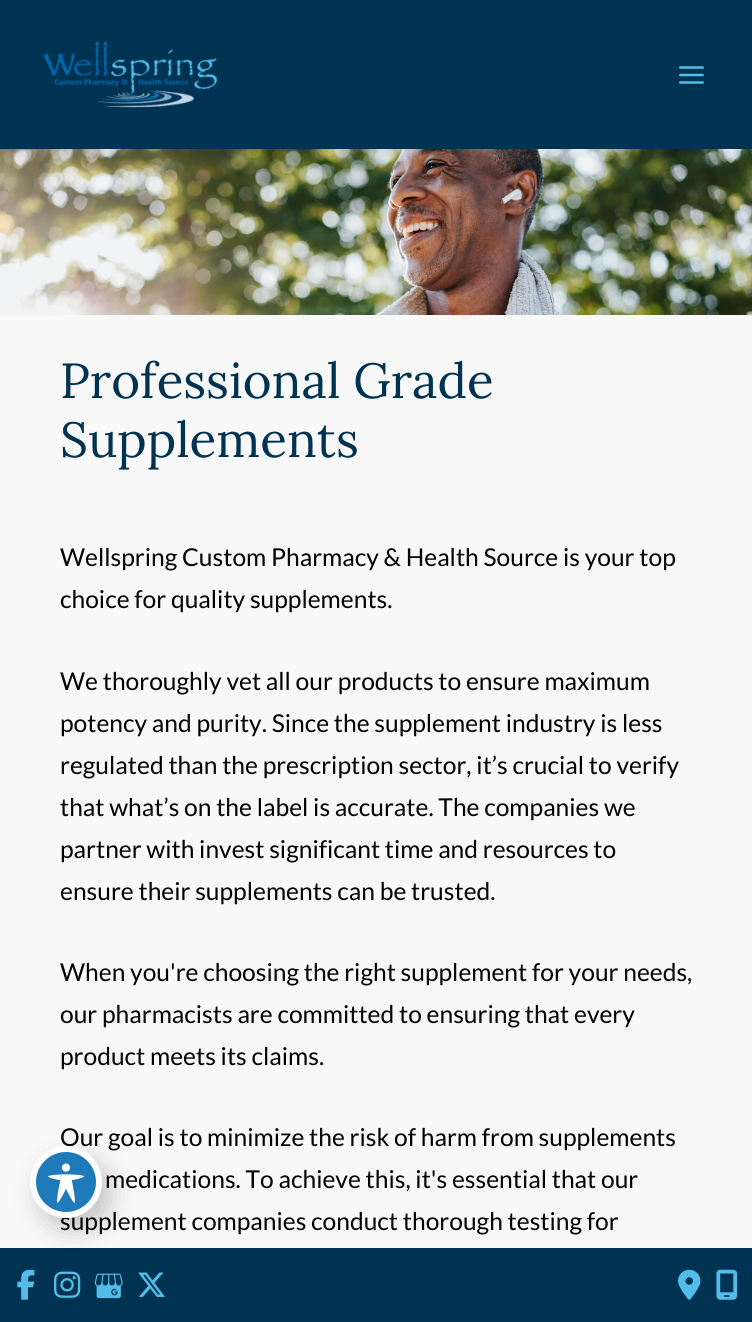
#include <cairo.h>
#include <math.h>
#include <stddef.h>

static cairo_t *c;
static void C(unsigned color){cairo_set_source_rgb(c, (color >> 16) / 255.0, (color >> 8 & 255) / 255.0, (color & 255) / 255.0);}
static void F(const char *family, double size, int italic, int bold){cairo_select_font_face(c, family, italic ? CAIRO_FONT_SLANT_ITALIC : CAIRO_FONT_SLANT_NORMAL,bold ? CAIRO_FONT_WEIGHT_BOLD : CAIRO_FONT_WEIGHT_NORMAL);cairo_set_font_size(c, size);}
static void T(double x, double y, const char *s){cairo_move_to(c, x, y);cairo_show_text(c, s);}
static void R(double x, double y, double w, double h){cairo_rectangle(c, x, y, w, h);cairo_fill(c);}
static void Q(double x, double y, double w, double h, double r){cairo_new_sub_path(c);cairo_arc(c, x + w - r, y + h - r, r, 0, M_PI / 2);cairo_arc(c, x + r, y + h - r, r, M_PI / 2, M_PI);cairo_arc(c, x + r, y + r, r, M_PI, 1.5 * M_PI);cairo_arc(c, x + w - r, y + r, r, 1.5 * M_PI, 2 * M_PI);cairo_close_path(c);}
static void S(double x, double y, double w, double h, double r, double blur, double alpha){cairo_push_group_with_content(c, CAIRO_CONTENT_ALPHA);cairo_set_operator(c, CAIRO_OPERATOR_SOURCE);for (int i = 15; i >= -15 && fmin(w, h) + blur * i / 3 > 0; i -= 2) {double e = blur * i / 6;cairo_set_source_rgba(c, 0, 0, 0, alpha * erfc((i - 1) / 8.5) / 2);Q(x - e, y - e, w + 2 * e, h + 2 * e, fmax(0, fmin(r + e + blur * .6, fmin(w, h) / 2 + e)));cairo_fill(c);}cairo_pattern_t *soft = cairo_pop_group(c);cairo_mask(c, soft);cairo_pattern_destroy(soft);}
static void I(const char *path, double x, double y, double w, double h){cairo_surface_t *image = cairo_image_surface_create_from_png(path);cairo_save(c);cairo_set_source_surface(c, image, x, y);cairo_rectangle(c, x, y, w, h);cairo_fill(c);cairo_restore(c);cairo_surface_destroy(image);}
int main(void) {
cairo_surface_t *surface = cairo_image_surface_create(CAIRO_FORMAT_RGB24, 752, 1322);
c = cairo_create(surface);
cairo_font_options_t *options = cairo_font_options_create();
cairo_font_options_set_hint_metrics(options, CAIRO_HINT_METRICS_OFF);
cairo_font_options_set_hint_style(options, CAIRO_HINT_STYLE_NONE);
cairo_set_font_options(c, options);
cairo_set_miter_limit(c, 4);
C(0xf8f8f8);
cairo_paint(c);
C(0x003251);
R(0,0,752,149);
I("1.png",43,40,175,68);
I("2.png",679,66,25,18);
I("3.png",0,149,752,166);
F("Lora",49.25,0,0);
T(60,398,"Professional Grade");
T(60,457,"Supplements");
F("Lato",24.6,0,0);
C(0x000000);
T(60,566,"Wellspring Custom Pharmacy & Health Source is your top");
T(60,608,"choice for quality supplements.");
T(60,690,"We thoroughly vet all our products to ensure maximum");
T(60,732,"potency and purity. Since the supplement industry is less");
T(60,774,"regulated than the prescription sector, it’s crucial to verify");
T(60,816,"that what’s on the label is accurate. The companies we");
T(60,858,"partner with invest significant time and resources to");
T(60,900,"ensure their supplements can be trusted.");
T(60,981,"When you're choosing the right supplement for your needs,");
T(60,1023,"our pharmacists are committed to ensuring that every");
T(60,1065,"product meets its claims.");
T(60,1146,"Our goal is to minimize the risk of harm from supplements");
T(105,1188,"medications. To achieve this, it's essential that our");
T(60,1230,"supplement companies conduct thorough testing for");
C(0x003251);
R(0,1248,752,74);
C(0x000000);
S(39,1158,72,72,36,12,.2);
C(0x1e7ab9);
cairo_arc(c,66,1182,33,0,2 * M_PI);
cairo_fill_preserve(c);
C(0xffffff);
cairo_set_line_width(c,6);
cairo_stroke(c);
I("4.png",48,1163,36,40);
I("5.png",17,1269,18,31);
I("6.png",54,1271,27,27);
I("7.png",94,1273,29,26);
I("8.png",138,1272,27,25);
I("9.png",678,1269,23,31);
I("10.png",716,1269,22,31);
cairo_surface_write_to_png(surface, "o.png");
cairo_font_options_destroy(options);
cairo_destroy(c);
cairo_surface_destroy(surface);
return 0;
}
